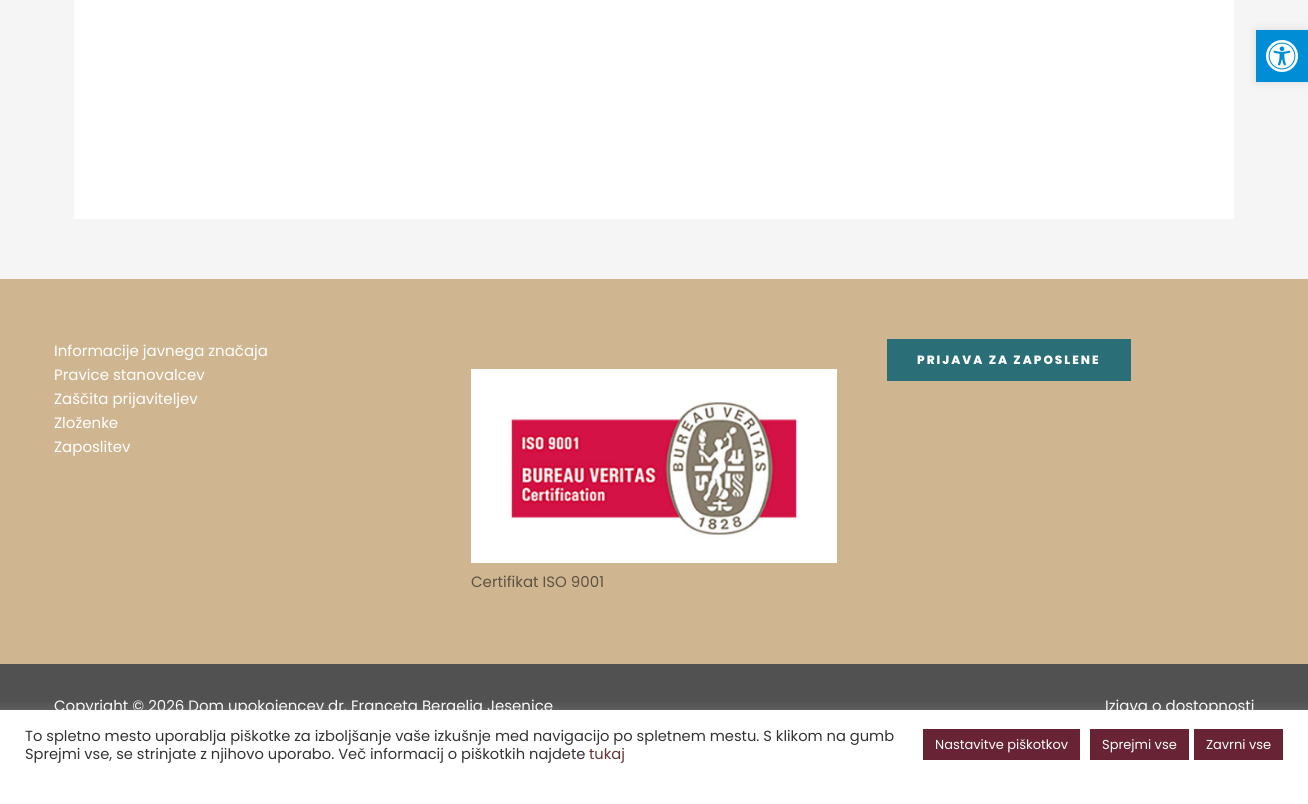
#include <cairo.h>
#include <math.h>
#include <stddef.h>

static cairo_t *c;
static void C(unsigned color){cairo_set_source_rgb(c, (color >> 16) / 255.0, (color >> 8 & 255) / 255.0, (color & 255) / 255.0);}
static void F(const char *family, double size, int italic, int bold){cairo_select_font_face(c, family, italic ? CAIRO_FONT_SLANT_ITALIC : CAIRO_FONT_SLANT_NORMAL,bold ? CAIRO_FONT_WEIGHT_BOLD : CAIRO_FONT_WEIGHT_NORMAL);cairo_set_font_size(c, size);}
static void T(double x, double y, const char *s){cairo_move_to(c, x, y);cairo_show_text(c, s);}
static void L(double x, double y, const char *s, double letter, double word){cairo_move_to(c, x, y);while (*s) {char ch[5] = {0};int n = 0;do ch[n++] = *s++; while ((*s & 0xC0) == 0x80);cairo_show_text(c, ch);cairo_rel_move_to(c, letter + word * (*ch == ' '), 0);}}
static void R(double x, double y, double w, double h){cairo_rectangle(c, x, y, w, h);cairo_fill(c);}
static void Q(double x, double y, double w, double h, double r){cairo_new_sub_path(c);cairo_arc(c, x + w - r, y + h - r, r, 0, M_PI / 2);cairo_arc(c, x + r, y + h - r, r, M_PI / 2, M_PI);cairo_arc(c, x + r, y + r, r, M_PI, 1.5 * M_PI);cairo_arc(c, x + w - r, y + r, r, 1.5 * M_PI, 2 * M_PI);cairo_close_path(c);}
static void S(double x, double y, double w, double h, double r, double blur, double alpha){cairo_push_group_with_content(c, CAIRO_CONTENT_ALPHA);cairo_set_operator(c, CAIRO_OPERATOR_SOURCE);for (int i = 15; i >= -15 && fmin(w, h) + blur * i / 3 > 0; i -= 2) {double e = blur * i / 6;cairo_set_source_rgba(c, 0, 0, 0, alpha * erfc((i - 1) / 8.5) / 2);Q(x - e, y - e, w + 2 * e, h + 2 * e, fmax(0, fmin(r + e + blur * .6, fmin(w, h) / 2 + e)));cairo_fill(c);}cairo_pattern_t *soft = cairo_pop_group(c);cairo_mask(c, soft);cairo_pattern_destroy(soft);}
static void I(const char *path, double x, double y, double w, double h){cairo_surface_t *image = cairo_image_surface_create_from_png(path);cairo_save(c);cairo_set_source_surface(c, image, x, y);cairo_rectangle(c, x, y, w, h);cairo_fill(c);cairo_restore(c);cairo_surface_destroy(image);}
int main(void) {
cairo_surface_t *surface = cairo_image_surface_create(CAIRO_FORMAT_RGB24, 1308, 804);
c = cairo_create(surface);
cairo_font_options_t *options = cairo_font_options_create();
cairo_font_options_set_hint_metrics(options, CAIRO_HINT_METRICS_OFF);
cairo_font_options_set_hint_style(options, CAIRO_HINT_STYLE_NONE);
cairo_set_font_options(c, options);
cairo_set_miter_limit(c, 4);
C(0xf5f5f5);
cairo_paint(c);
C(0x000000);
S(1256,30,52,52,0,5,.1);
C(0x008dd5);
R(1256,30,52,52);
I("1.png",1266,40,32,32);
C(0xffffff);
R(74,0,1160,219);
C(0xcfb691);
R(0,279,1308,385);
F("Poppins",15,0,0);
C(0xffffff);
T(54,356,"Informacije javnega značaja");
T(54,380,"Pravice stanovalcev");
T(54,404,"Zaščita prijaviteljev");
T(54,428,"Zloženke");
T(54,452,"Zaposlitev");
C(0x2a6e78);
R(887,339,244,42);
F("Poppins ExtraBold",12,0,0);
C(0xffffff);
L(917,364,"PRIJAVA ZA ZAPOSLENE",2,0);
I("2.png",471,369,366,194);
F("Poppins",15,0,0);
C(0x5d5241);
T(471,587,"Certifikat ISO 9001");
C(0x515151);
R(0,664,1308,46);
C(0xffffff);
T(54,711,"Copyright © 2026 Dom upokojencev dr. Franceta Bergelja Jesenice");
T(1105,711,"Izjava o dostopnosti");
C(0xacabab);
S(0,709,1308,94,0,5,.3);
C(0xffffff);
R(0,710,1308,94);
F("Poppins",14.67,0,0);
C(0x333333);
T(25,741,"To spletno mesto uporablja piškotke za izboljšanje vaše izkušnje med navigacijo po spletnem mestu. S klikom na gumb");
T(25,759,"Sprejmi vse, se strinjate z njihovo uporabo. Več informacij o piškotkih najdete");
C(0x663333);
T(589,759,"tukaj");
C(0x682434);
R(923,729,157,31);
F("Poppins",13,0,0);
C(0xffffff);
T(935,749,"Nastavitve piškotkov");
C(0x682434);
R(1090,729,99,31);
C(0xffffff);
T(1102,749,"Sprejmi vse");
C(0x682434);
R(1194,729,89,31);
C(0xffffff);
T(1206,749,"Zavrni vse");
cairo_surface_write_to_png(surface, "o.png");
cairo_font_options_destroy(options);
cairo_destroy(c);
cairo_surface_destroy(surface);
return 0;
}
